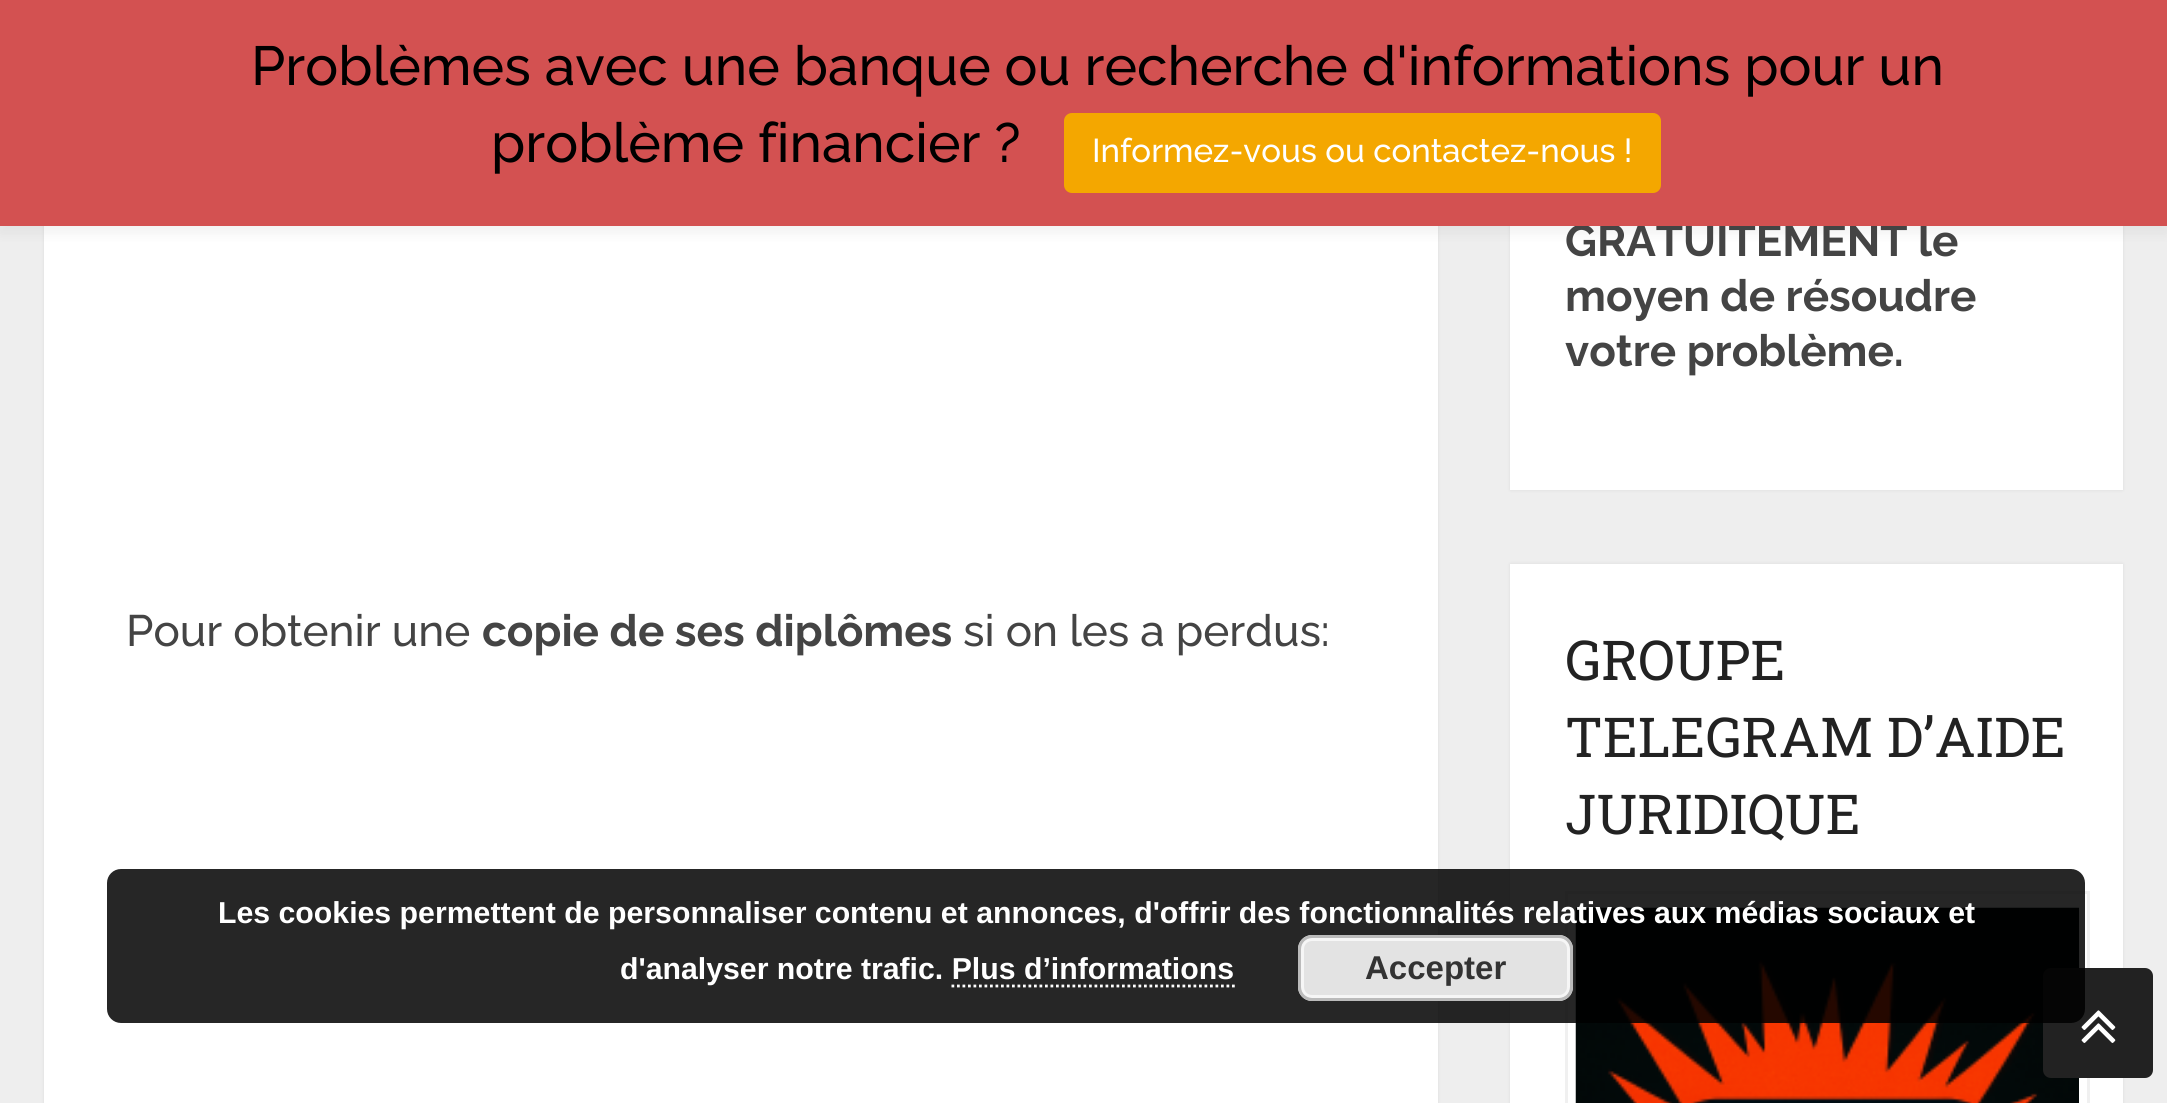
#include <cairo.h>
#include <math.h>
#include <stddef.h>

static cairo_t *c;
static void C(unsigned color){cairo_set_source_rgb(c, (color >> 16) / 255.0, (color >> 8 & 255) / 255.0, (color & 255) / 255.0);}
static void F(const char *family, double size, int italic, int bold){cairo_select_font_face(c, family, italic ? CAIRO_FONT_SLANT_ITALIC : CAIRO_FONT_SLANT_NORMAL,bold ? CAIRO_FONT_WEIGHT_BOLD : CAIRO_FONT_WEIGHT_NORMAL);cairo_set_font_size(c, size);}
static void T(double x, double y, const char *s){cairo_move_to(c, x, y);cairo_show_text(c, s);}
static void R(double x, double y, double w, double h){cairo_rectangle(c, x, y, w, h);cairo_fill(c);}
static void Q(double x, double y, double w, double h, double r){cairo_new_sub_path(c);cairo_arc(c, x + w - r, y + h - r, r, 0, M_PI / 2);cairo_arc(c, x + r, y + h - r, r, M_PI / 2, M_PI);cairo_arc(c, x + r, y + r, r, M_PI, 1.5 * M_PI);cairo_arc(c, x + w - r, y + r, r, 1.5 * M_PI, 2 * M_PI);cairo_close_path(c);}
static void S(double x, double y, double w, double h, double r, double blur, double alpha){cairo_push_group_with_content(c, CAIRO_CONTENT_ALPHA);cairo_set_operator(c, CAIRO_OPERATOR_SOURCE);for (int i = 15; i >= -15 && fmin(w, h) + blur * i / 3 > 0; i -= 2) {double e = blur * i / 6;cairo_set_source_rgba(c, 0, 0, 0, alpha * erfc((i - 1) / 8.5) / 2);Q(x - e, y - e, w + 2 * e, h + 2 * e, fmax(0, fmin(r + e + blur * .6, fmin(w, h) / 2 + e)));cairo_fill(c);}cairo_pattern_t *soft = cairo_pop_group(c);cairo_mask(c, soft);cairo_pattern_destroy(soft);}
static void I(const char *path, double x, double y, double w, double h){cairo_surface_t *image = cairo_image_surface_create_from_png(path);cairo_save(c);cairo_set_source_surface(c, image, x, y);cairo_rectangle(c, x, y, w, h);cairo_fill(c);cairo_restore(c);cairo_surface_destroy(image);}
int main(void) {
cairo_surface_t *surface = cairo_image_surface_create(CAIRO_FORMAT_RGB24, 2167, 1103);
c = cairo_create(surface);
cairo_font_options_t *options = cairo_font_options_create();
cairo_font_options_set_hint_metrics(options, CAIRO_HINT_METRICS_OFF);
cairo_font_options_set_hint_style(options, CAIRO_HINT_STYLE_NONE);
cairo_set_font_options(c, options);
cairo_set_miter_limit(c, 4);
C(0xeeeeee);
cairo_paint(c);
C(0x323232);
S(44,-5,1394,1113,0,1.5,.1);
C(0xffffff);
R(44,226,1394,877);
C(0x323232);
S(1510,-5,613,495,0,1.5,.1);
C(0xffffff);
R(1510,226,613,264);
C(0x000000);
S(0,8,2167,226,0,5.5,.05);
F("Raleway",44,0,1);
C(0x444444);
T(1565,256,"GRATUITEMENT le");
C(0xd35151);
R(0,0,2167,226);
F("Raleway Medium",55,0,0);
C(0x000000);
T(251,85,"Problèmes avec une banque ou recherche d'informations pour un");
T(491,162,"problème financier ?");
C(0xf4a700);
Q(1064,113,597,80,8);
cairo_fill(c);
F("Raleway Medium",33,0,0);
C(0xffffff);
T(1092,162,"Informez-vous ou contactez-nous !");
F("Raleway Medium",44,0,0);
C(0x444444);
T(126,646,"Pour obtenir une");
F("Raleway",44,0,1);
T(482,646,"copie de ses diplômes");
F("Raleway Medium",44,0,0);
T(963,646,"si on les a perdus:");
F("Raleway",44,0,1);
T(1565,311,"moyen de résoudre");
T(1565,366,"votre problème.");
C(0x323232);
S(1510,564,613,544,0,1.5,.1);
C(0xffffff);
R(1510,564,613,539);
F("Roboto Slab",55,0,0);
C(0x222222);
T(1565,680,"GROUPE");
T(1565,757,"TELEGRAM D’AIDE");
T(1565,834,"JURIDIQUE");
cairo_rectangle(c,1566.5,892.5,522,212);
C(0xf0f0f0);
cairo_set_line_width(c,3);
cairo_stroke(c);
I("1.png",1575,907,504,196);
C(0x222222);
Q(2043,968,110,110,8);
cairo_fill(c);
I("2.png",2081,1010,35,33);
cairo_set_source_rgba(c,0,0,0,0.85);
Q(107,869,1978,154,14);
cairo_fill(c);
F("Liberation Sans",30.25,0,1);
C(0xffffff);
T(218,923,"Les cookies permettent de personnaliser contenu et annonces, d'offrir des fonctionnalités relatives aux médias sociaux et");
T(620,979,"d'analyser notre trafic. Plus d’informations");
C(0xe3e3e3);
Q(1298,935,275,66,14);
cairo_fill(c);
Q(1302.5,939.5,266,57,9.5);
C(0xf6f6f6);
cairo_stroke(c);
Q(1299.5,936.5,272,63,12.5);
C(0xbbbbbb);
cairo_stroke(c);
F("Liberation Sans",33,0,1);
C(0x333333);
T(1365,979,"Accepter");
cairo_new_path(c);
cairo_move_to(c,951.5,986);
cairo_line_to(c,1235,986);
C(0xffffff);
cairo_set_line_width(c,2.8);
cairo_set_dash(c,(double[]){2.75,2.75},2,0);
cairo_stroke(c);
cairo_surface_write_to_png(surface, "o.png");
cairo_font_options_destroy(options);
cairo_destroy(c);
cairo_surface_destroy(surface);
return 0;
}
